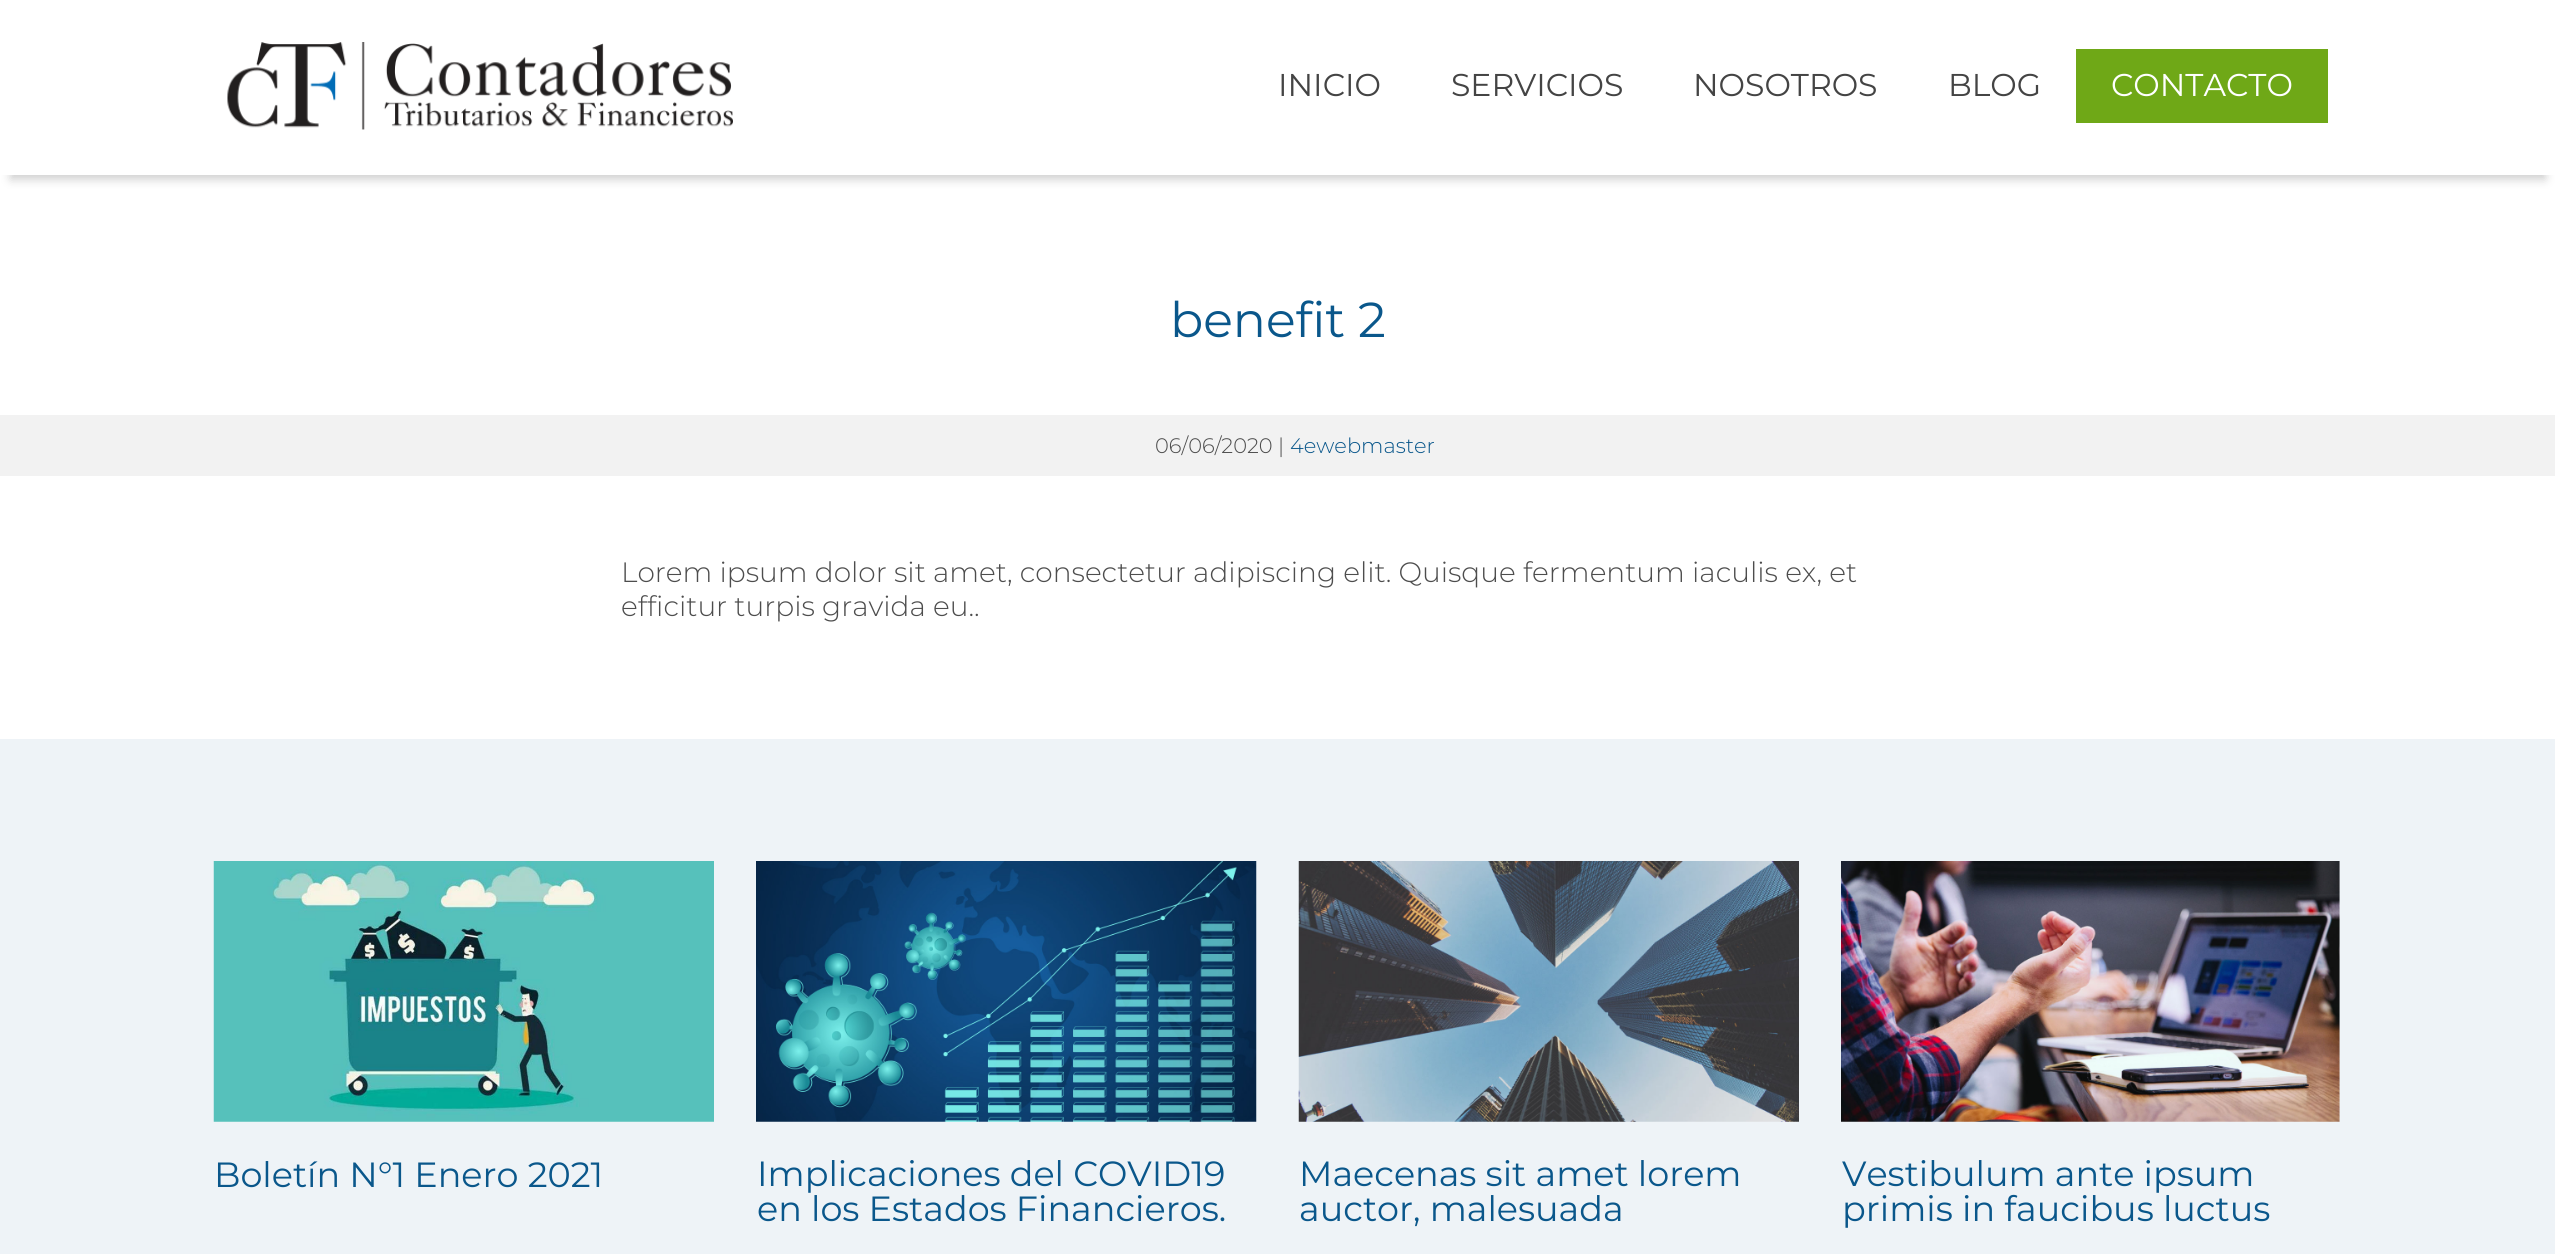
#include <cairo.h>
#include <math.h>
#include <stddef.h>

static cairo_t *c;
static void C(unsigned color){cairo_set_source_rgb(c, (color >> 16) / 255.0, (color >> 8 & 255) / 255.0, (color & 255) / 255.0);}
static void F(const char *family, double size, int italic, int bold){cairo_select_font_face(c, family, italic ? CAIRO_FONT_SLANT_ITALIC : CAIRO_FONT_SLANT_NORMAL,bold ? CAIRO_FONT_WEIGHT_BOLD : CAIRO_FONT_WEIGHT_NORMAL);cairo_set_font_size(c, size);}
static void T(double x, double y, const char *s){cairo_move_to(c, x, y);cairo_show_text(c, s);}
static void R(double x, double y, double w, double h){cairo_rectangle(c, x, y, w, h);cairo_fill(c);}
static void Q(double x, double y, double w, double h, double r){cairo_new_sub_path(c);cairo_arc(c, x + w - r, y + h - r, r, 0, M_PI / 2);cairo_arc(c, x + r, y + h - r, r, M_PI / 2, M_PI);cairo_arc(c, x + r, y + r, r, M_PI, 1.5 * M_PI);cairo_arc(c, x + w - r, y + r, r, 1.5 * M_PI, 2 * M_PI);cairo_close_path(c);}
static void S(double x, double y, double w, double h, double r, double blur, double alpha){cairo_push_group_with_content(c, CAIRO_CONTENT_ALPHA);cairo_set_operator(c, CAIRO_OPERATOR_SOURCE);for (int i = 15; i >= -15 && fmin(w, h) + blur * i / 3 > 0; i -= 2) {double e = blur * i / 6;cairo_set_source_rgba(c, 0, 0, 0, alpha * erfc((i - 1) / 8.5) / 2);Q(x - e, y - e, w + 2 * e, h + 2 * e, fmax(0, fmin(r + e + blur * .6, fmin(w, h) / 2 + e)));cairo_fill(c);}cairo_pattern_t *soft = cairo_pop_group(c);cairo_mask(c, soft);cairo_pattern_destroy(soft);}
static void I(const char *path, double x, double y, double w, double h){cairo_surface_t *image = cairo_image_surface_create_from_png(path);cairo_save(c);cairo_set_source_surface(c, image, x, y);cairo_rectangle(c, x, y, w, h);cairo_fill(c);cairo_restore(c);cairo_surface_destroy(image);}
int main(void) {
cairo_surface_t *surface = cairo_image_surface_create(CAIRO_FORMAT_RGB24, 2555, 1254);
c = cairo_create(surface);
cairo_font_options_t *options = cairo_font_options_create();
cairo_font_options_set_hint_metrics(options, CAIRO_HINT_METRICS_OFF);
cairo_font_options_set_hint_style(options, CAIRO_HINT_STYLE_NONE);
cairo_set_font_options(c, options);
cairo_set_miter_limit(c, 4);
C(0xffffff);
cairo_paint(c);
cairo_save(c);
cairo_rectangle(c,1,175,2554,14);
cairo_clip(c);
C(0xcccccc);
S(11,25,2534,154,0,5,1);
cairo_restore(c);
I("1.png",227,42,506,88);
F("Montserrat",31.5,0,0);
C(0x444444);
T(1278,96,"INICIO");
T(1451,96,"SERVICIOS");
T(1693,96,"NOSOTROS");
T(1948,96,"BLOG");
C(0x6fa817);
R(2076,49,252,74);
C(0xffffff);
T(2111,96,"CONTACTO");
F("Montserrat",49,0,0);
C(0x0a578b);
T(1170,337,"benefit 2");
C(0xf2f2f2);
R(0,415,2555,61);
F("Montserrat Light",21,0,0);
C(0x4d4d4d);
T(1155,453,"06/06/2020 |");
C(0x0a578b);
T(1290,453,"4ewebmaster");
F("Montserrat Light",28,0,0);
C(0x4d4d4d);
T(621,582,"Lorem ipsum dolor sit amet, consectetur adipiscing elit. Quisque fermentum iaculis ex, et");
T(621,616,"efficitur turpis gravida eu..");
C(0xeef3f7);
R(0,739,2555,515);
I("2.png",213,861,501,261);
F("Montserrat",35,0,0);
C(0x0a578b);
T(214,1187,"Boletín N°1 Enero 2021");
I("3.png",756,861,501,261);
T(757,1186,"Implicaciones del COVID19");
T(757,1221,"en los Estados Financieros.");
I("4.png",1298,861,501,261);
T(1299,1186,"Maecenas sit amet lorem");
T(1299,1221,"auctor, malesuada");
I("5.png",1841,861,499,261);
T(1842,1186,"Vestibulum ante ipsum");
T(1842,1221,"primis in faucibus luctus");
cairo_surface_write_to_png(surface, "o.png");
cairo_font_options_destroy(options);
cairo_destroy(c);
cairo_surface_destroy(surface);
return 0;
}
